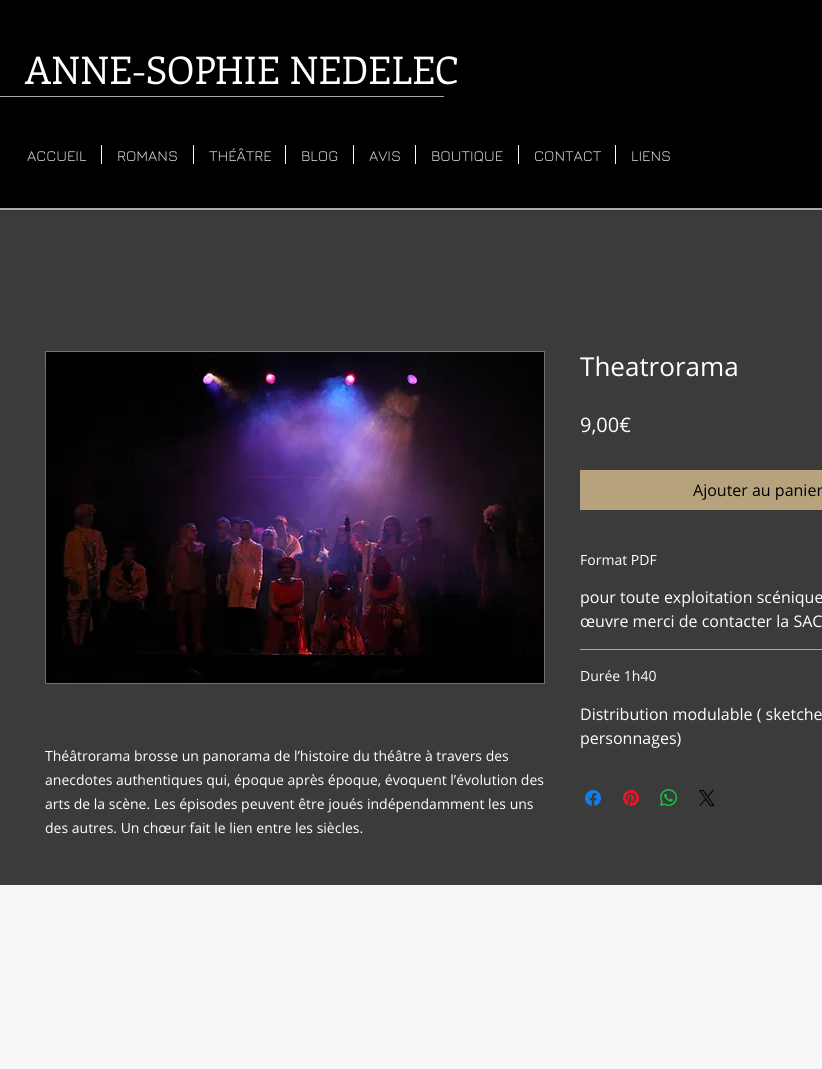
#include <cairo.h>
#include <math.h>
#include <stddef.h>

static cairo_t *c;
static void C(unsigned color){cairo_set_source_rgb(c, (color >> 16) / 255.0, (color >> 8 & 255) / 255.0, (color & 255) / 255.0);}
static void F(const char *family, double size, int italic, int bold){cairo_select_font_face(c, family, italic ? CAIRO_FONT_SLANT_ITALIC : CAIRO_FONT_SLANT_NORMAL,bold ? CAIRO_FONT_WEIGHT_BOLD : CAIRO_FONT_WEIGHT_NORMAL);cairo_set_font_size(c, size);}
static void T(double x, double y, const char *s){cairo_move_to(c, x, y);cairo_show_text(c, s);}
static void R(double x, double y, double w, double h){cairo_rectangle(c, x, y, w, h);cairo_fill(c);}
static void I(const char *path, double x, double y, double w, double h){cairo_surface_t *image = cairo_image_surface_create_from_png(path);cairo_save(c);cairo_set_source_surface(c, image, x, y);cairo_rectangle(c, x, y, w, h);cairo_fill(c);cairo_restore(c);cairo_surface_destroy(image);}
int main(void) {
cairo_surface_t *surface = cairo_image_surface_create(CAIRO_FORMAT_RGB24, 822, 1069);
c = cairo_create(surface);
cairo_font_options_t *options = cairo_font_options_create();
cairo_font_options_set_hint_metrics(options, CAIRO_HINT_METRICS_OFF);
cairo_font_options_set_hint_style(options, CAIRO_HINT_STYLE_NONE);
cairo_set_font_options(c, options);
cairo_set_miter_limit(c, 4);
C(0xf7f7f7);
cairo_paint(c);
C(0x000000);
R(0,0,822,208);
C(0xaaa8a8);
R(0,208,822,2);
F("Enriqueta",38,0,0);
C(0xffffff);
T(25,84,"ANNE-SOPHIE NEDELEC");
C(0xaaa8a8);
R(0,96,444,1);
F("Jura",15,0,0);
C(0xe0dddd);
T(27,161,"ACCUEIL");
C(0xffffff);
R(101,145,1,19);
C(0xe0dddd);
T(117,161,"ROMANS");
C(0xffffff);
R(193,145,1,19);
C(0xe0dddd);
T(209,161,"THÉÂTRE");
C(0xffffff);
R(285,145,1,19);
C(0xe0dddd);
T(301,161,"BLOG");
C(0xffffff);
R(353,145,1,19);
C(0xe0dddd);
T(369,161,"AVIS");
C(0xffffff);
R(415,145,1,19);
C(0xe0dddd);
T(431,161,"BOUTIQUE");
C(0xffffff);
R(518,145,1,19);
C(0xe0dddd);
T(534,161,"CONTACT");
C(0xffffff);
R(615,145,1,19);
C(0xe0dddd);
T(631,161,"LIENS");
C(0x3b3b3b);
R(0,210,822,675);
F("Open Sans",26,0,0);
C(0xffffff);
T(580,376,"Theatrorama");
F("Open Sans",20,0,0);
T(580,432,"9,00€");
C(0xb7a27e);
R(580,470,242,40);
F("Open Sans",16,0,0);
C(0x000000);
T(693,496,"Ajouter au panier");
C(0xaaa8a8);
R(580,649,242,1);
F("Open Sans",14,0,0);
C(0xffffff);
T(580,565,"Format PDF");
F("Open Sans",16,0,0);
T(580,603,"pour toute exploitation scénique");
T(580,627,"œuvre merci de contacter la SAC");
F("Open Sans",14,0,0);
T(580,681,"Durée 1h40");
F("Open Sans",16,0,0);
T(580,720,"Distribution modulable ( sketche");
T(580,744,"personnages)");
I("1.png",585,790,16,16);
I("2.png",623,790,16,16);
I("3.png",660,789,17,17);
I("4.png",699,790,16,16);
cairo_rectangle(c,45.5,351.5,499,332);
C(0x717171);
cairo_set_line_width(c,1);
cairo_stroke(c);
I("5.png",46,352,498,331);
F("Open Sans",14,0,0);
C(0xffffff);
T(45,761,"Théâtrorama brosse un panorama de l’histoire du théâtre à travers des");
T(45,785,"anecdotes authentiques qui, époque après époque, évoquent l’évolution des");
T(45,809,"arts de la scène. Les épisodes peuvent être joués indépendamment les uns");
T(45,833,"des autres. Un chœur fait le lien entre les siècles.");
cairo_surface_write_to_png(surface, "o.png");
cairo_font_options_destroy(options);
cairo_destroy(c);
cairo_surface_destroy(surface);
return 0;
}
